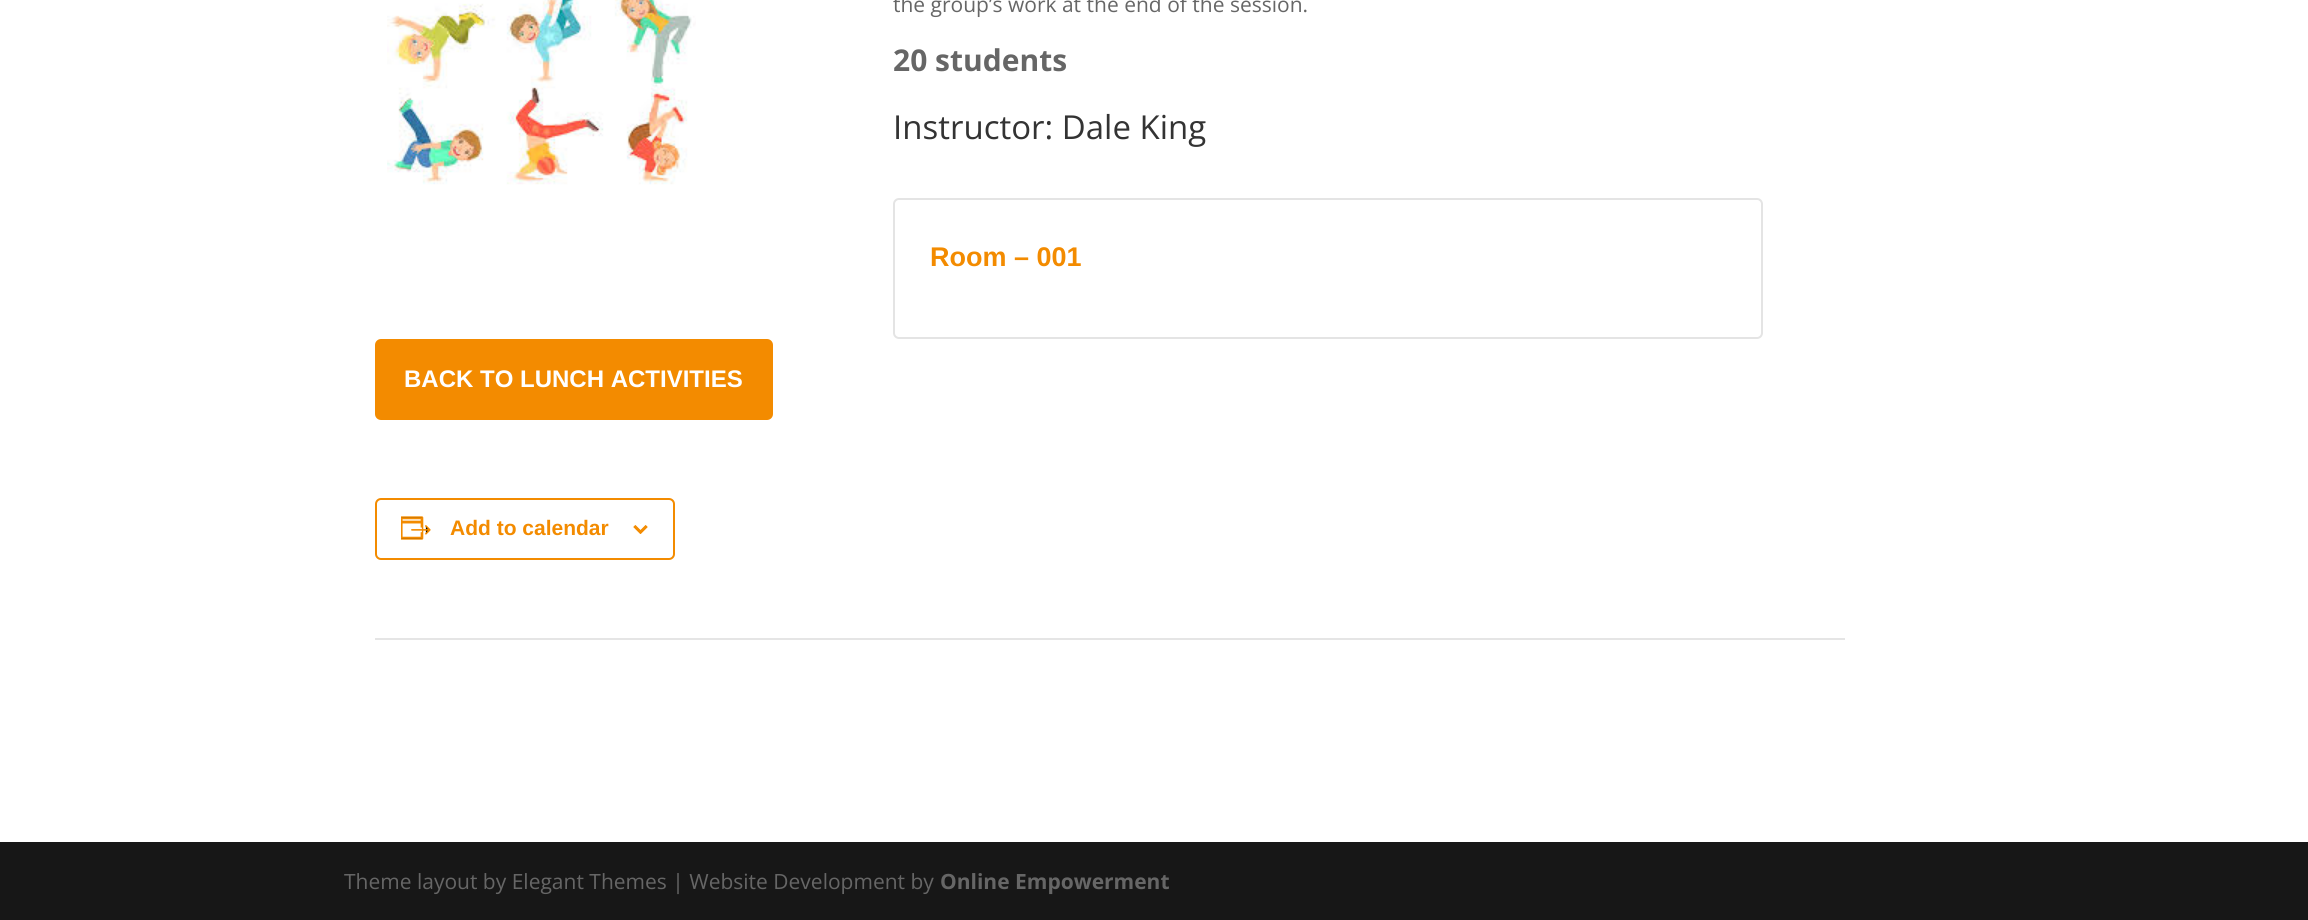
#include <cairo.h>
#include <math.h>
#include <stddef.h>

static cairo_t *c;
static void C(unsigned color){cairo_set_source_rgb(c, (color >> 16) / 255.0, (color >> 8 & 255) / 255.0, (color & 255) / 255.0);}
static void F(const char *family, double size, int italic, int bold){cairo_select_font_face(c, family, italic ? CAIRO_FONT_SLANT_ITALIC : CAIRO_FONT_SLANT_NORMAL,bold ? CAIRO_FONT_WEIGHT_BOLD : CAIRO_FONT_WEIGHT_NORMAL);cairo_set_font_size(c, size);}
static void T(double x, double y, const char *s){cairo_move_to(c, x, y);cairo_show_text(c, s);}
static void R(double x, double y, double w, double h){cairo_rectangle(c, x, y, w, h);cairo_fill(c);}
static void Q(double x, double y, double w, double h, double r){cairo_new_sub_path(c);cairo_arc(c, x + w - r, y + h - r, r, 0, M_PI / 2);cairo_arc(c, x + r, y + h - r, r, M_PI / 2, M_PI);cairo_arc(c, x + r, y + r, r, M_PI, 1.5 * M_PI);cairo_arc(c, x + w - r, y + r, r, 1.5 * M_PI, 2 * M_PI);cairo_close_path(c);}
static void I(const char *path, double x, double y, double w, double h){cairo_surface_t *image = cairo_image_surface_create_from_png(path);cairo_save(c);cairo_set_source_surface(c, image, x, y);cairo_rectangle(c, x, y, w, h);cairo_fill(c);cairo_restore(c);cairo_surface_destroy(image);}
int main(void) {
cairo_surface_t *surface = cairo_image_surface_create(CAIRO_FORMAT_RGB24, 2308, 920);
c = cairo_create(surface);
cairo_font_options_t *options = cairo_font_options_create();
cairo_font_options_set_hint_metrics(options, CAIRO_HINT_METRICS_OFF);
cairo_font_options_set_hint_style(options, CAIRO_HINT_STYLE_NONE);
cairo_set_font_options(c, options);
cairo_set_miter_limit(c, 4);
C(0xffffff);
cairo_paint(c);
I("1.png",387,0,309,185);
F("Open Sans",21,0,0);
C(0x666666);
T(893,12,"the group’s work at the end of the session.");
F("Open Sans",30,0,1);
T(893,71,"20 students");
F("Open Sans",33,0,0);
C(0x333333);
T(893,139,"Instructor: Dale King");
Q(894,199,868,139,5);
C(0xe4e4e4);
cairo_stroke(c);
F("Liberation Sans",27,0,1);
C(0xf38b00);
T(930,266,"Room – 001");
Q(375,339,398,81,6);
cairo_fill(c);
F("Liberation Sans",24,0,1);
C(0xffffff);
T(404,387,"BACK TO LUNCH ACTIVITIES");
Q(376,499,298,60,5);
C(0xf38b00);
cairo_stroke(c);
I("2.png",401,516,30,24);
F("Liberation Sans",21,0,1);
T(450,535,"Add to calendar");
I("3.png",633,525,15,9);
C(0xe5e5e5);
R(375,638,1470,2);
C(0x171717);
R(0,842,2308,78);
F("Open Sans",21,0,0);
C(0x666666);
T(344,889,"Theme layout by Elegant Themes | Website Development by");
F("Open Sans",21,0,1);
T(940,889,"Online Empowerment");
cairo_surface_write_to_png(surface, "o.png");
cairo_font_options_destroy(options);
cairo_destroy(c);
cairo_surface_destroy(surface);
return 0;
}
